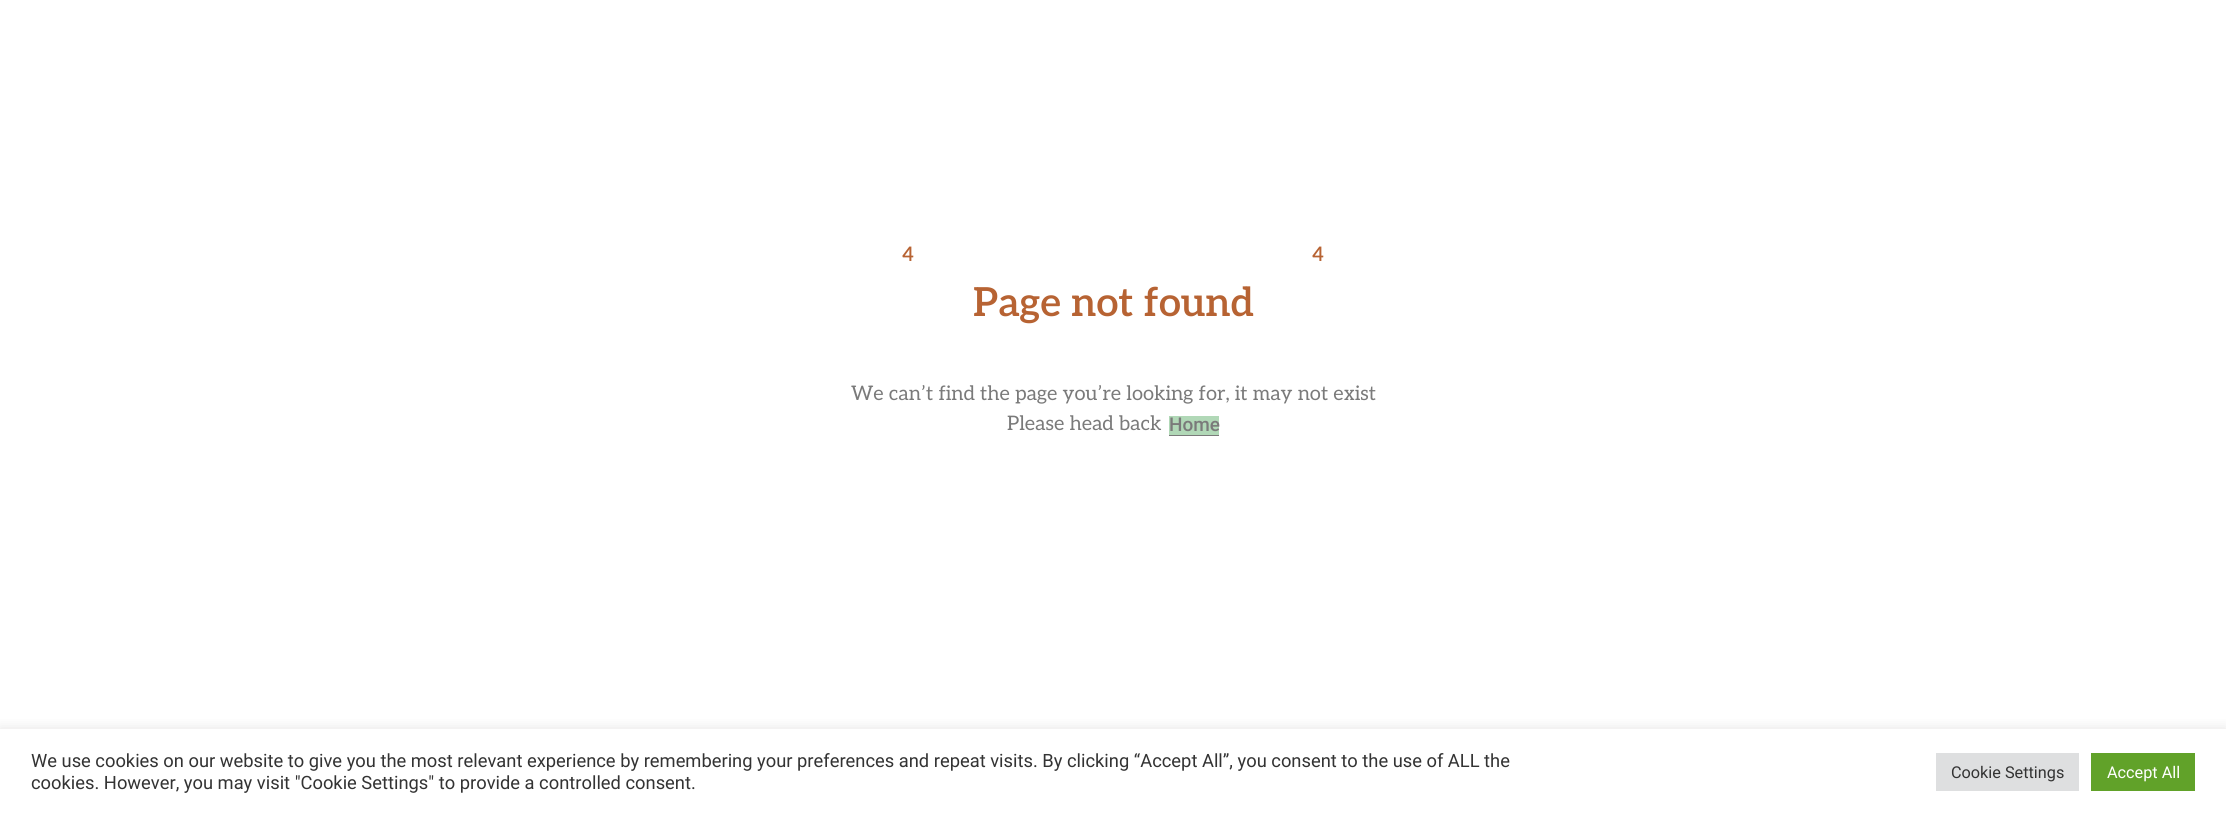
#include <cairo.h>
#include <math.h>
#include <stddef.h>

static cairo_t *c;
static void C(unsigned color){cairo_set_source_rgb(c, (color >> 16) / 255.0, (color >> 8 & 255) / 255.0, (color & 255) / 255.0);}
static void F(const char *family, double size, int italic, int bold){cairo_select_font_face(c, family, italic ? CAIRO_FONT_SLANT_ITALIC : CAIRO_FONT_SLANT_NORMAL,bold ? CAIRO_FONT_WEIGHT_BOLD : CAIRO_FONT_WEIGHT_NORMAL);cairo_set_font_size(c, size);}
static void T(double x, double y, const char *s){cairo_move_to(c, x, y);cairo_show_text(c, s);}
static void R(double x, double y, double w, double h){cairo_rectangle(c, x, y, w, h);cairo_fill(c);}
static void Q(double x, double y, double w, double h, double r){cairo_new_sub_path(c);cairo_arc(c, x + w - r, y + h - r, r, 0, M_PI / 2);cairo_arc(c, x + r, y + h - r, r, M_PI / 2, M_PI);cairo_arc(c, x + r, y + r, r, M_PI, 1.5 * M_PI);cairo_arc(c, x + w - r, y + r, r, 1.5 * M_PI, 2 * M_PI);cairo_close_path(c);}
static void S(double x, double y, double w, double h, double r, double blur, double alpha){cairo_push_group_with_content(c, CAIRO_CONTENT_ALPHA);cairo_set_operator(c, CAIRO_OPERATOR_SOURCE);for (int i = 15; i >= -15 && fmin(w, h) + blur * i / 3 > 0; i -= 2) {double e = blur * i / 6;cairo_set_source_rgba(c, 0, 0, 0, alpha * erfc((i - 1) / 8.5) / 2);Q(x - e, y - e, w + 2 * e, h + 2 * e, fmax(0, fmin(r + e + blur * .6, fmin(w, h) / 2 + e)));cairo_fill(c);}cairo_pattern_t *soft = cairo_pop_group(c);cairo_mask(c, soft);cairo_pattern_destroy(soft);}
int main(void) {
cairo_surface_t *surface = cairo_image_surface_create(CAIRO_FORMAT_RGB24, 2226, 814);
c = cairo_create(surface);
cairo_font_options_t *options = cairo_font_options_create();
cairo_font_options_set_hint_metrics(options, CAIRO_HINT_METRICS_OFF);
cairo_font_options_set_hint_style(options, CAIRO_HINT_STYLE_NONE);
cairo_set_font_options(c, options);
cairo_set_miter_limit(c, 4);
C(0xffffff);
cairo_paint(c);
F("Aleo SemiBold",20,0,0);
C(0xb76333);
T(902,261,"4");
T(1312,261,"4");
F("Aleo SemiBold",40,0,0);
T(973,316,"Page not found");
F("Aleo",20,0,0);
C(0x7a7a7a);
T(851,400,"We can’t find the page you’re looking for, it may not exist");
T(1007,430,"Please head back");
C(0xb1d8b7);
R(1169,416,50,19);
C(0x7a7a7a);
R(1169,435,50,1);
F("Roboto Medium",19,0,0);
T(1169,431,"Home");
cairo_save(c);
cairo_rectangle(c,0,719,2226,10);
cairo_clip(c);
C(0xacabab);
S(0,728,2226,86,0,6,.3);
cairo_restore(c);
F("Roboto",18.33,0,0);
C(0x333333);
T(31,767,"We use cookies on our website to give you the most relevant experience by remembering your preferences and repeat visits. By clicking “Accept All”, you consent to the use of ALL the");
T(31,789,"cookies. However, you may visit \"Cookie Settings\" to provide a controlled consent.");
C(0xdedfe0);
R(1936,753,143,38);
F("Roboto",16.25,0,0);
C(0x333333);
T(1951,778,"Cookie Settings");
C(0x61a229);
R(2091,753,104,38);
C(0xffffff);
T(2107,778,"Accept All");
cairo_surface_write_to_png(surface, "o.png");
cairo_font_options_destroy(options);
cairo_destroy(c);
cairo_surface_destroy(surface);
return 0;
}
